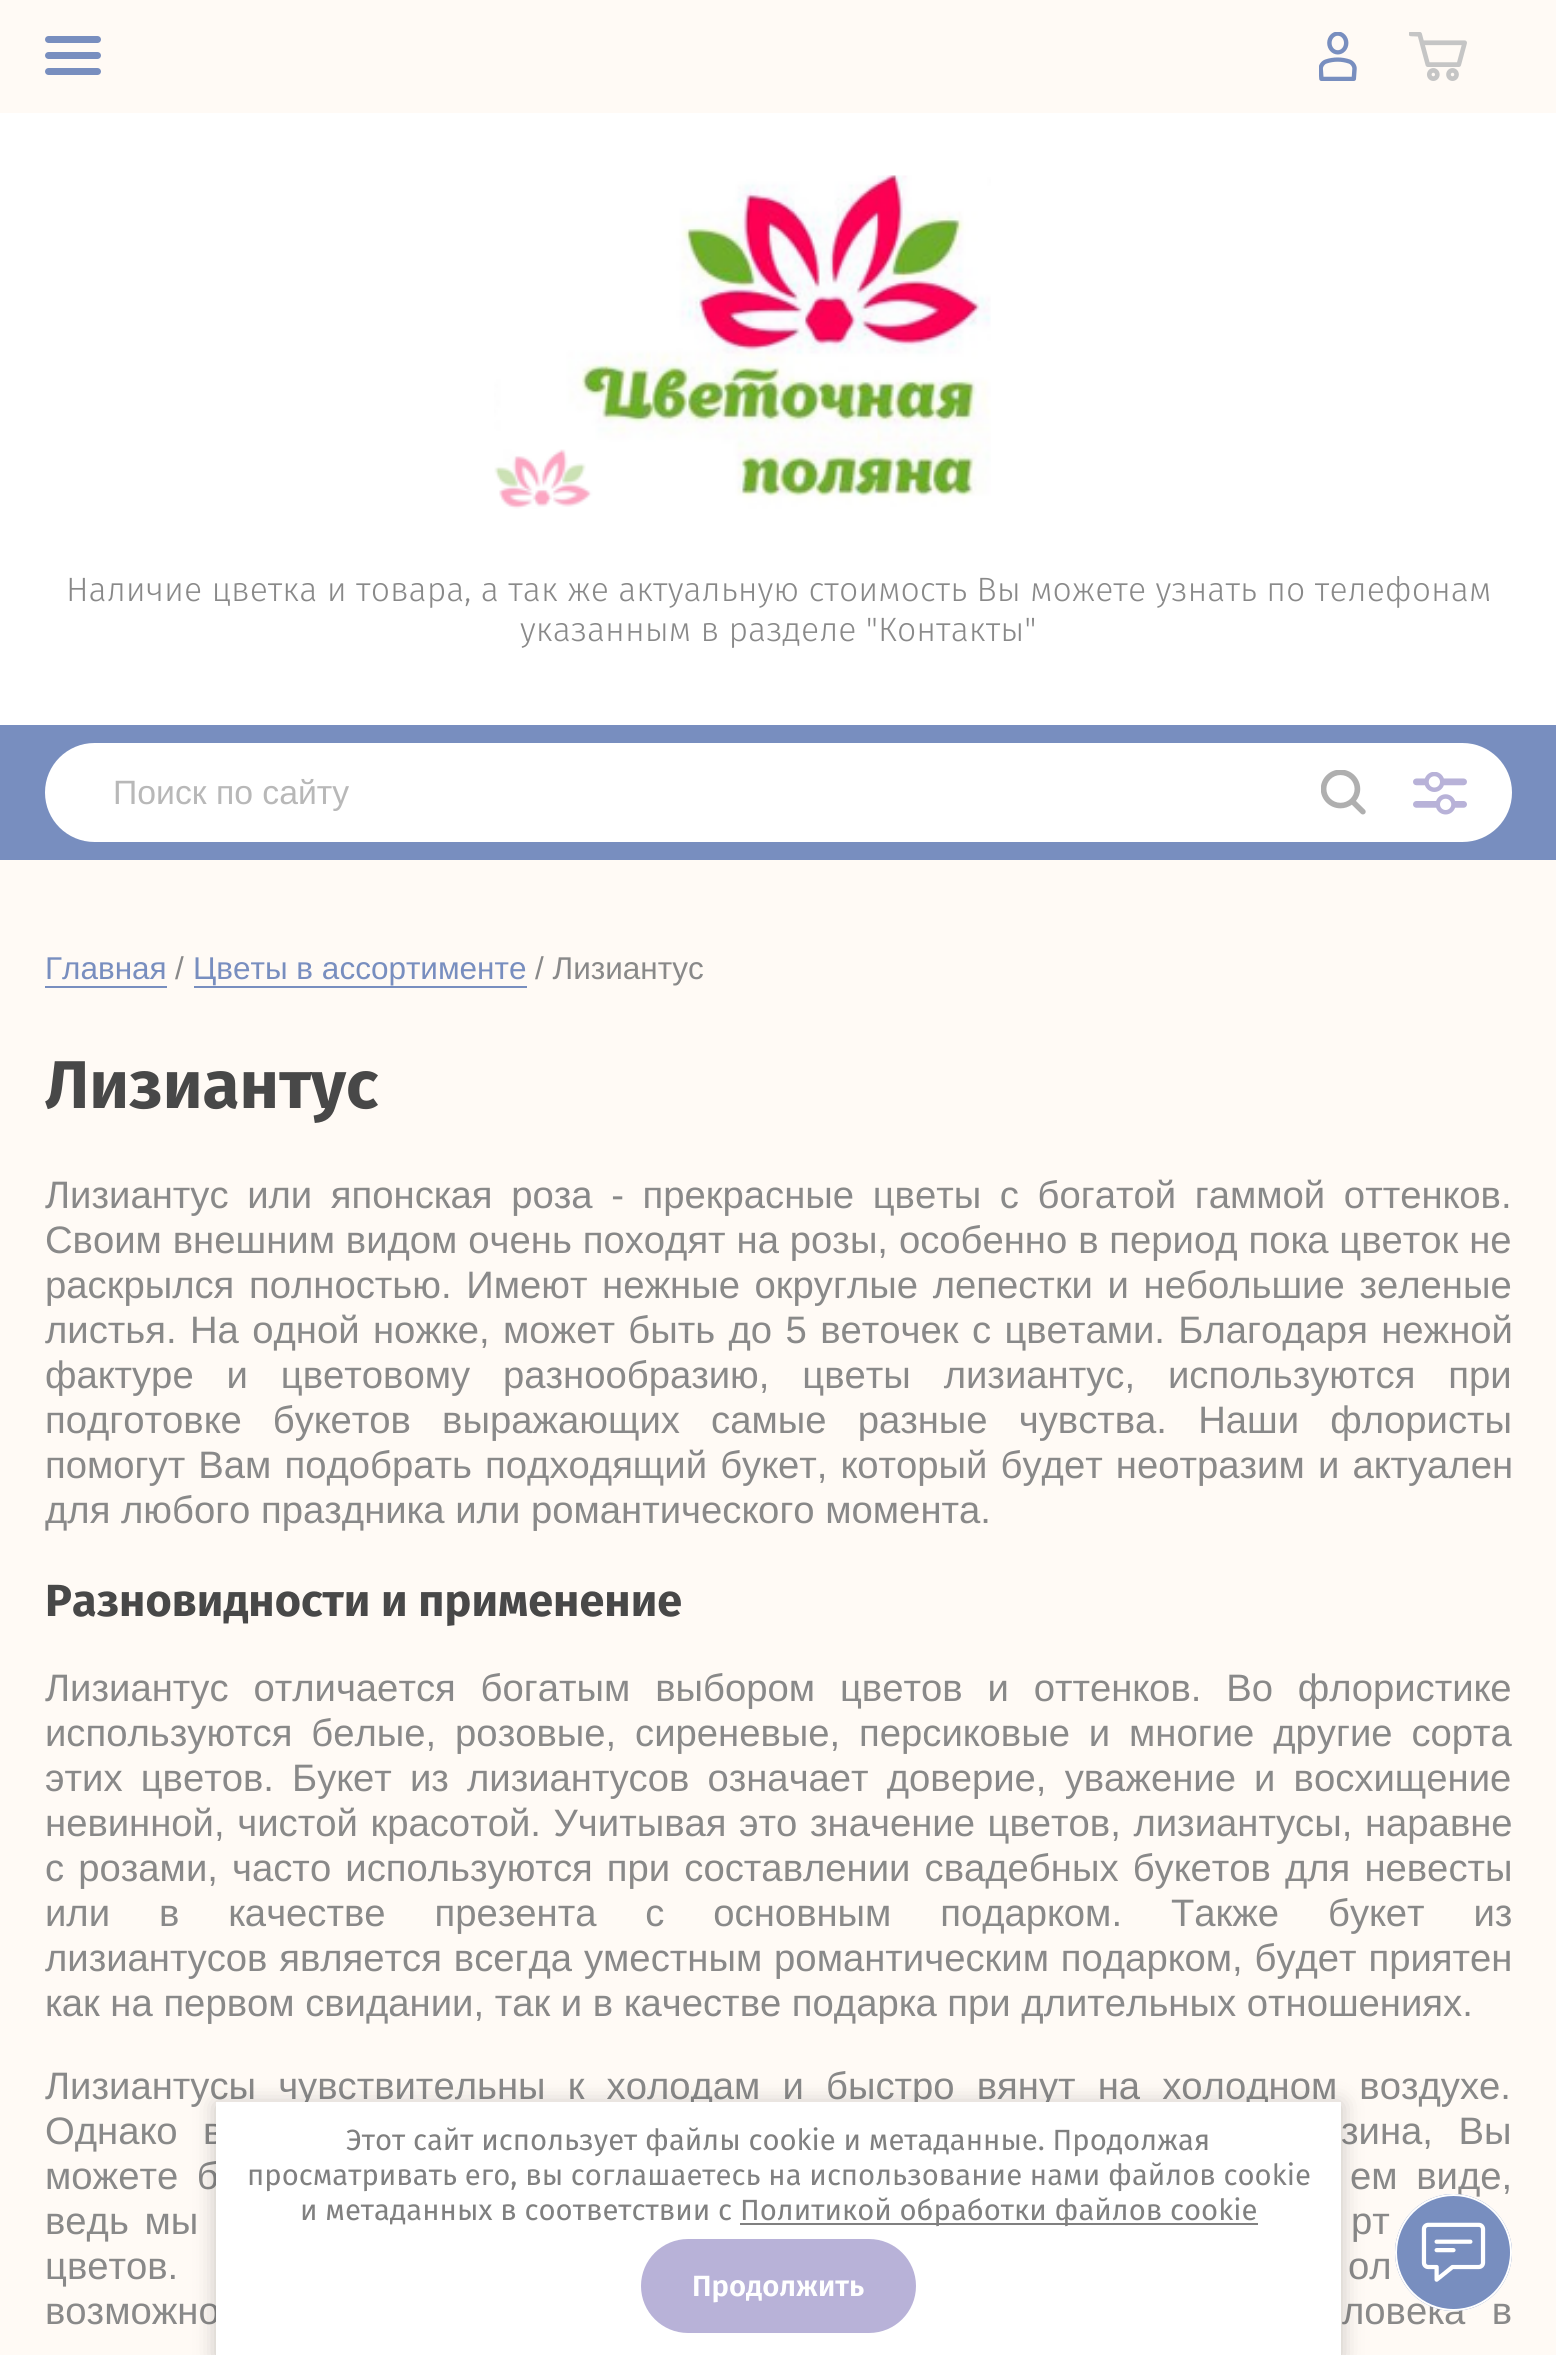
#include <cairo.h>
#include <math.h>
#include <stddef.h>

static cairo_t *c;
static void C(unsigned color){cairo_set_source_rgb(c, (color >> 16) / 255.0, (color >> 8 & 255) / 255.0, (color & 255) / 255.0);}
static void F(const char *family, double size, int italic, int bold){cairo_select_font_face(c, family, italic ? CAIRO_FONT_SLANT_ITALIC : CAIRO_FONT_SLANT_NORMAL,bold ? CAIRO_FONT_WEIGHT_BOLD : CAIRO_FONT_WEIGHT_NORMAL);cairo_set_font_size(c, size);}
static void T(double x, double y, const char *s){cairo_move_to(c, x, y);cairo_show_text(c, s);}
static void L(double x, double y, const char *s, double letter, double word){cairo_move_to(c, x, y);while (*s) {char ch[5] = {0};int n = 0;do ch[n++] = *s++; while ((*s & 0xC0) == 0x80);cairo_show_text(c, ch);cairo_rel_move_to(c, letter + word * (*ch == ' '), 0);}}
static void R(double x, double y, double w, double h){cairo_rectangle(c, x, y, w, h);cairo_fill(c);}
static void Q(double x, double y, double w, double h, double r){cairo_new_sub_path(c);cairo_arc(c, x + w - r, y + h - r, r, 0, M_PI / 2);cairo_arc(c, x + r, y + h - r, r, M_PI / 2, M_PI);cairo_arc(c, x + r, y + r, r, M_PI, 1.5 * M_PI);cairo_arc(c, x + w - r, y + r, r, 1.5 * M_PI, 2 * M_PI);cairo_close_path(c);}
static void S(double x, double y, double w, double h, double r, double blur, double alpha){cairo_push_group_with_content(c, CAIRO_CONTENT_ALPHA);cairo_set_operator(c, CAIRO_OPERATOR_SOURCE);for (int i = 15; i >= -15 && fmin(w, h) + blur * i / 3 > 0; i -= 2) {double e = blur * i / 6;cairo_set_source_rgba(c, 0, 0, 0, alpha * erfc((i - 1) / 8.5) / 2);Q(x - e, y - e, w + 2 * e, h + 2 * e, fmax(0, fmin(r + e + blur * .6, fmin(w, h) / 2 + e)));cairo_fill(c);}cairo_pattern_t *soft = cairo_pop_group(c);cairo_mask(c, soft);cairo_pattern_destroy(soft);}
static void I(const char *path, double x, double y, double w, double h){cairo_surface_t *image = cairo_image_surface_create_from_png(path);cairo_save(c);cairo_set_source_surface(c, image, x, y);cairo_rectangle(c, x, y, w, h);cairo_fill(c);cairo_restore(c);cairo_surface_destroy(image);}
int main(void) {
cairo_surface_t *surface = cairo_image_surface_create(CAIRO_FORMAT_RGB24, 1556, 2355);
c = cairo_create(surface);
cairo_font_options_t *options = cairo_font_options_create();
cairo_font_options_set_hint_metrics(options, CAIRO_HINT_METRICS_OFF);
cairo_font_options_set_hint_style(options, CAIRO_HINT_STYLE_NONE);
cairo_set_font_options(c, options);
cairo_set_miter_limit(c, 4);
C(0xffffff);
cairo_paint(c);
C(0xfffaf5);
R(0,0,1556,113);
C(0x788ebf);
Q(45,36,56,7,3.5);
cairo_fill(c);
Q(45,52,56,7,3.5);
cairo_fill(c);
Q(45,68,56,7,3.5);
cairo_fill(c);
I("1.png",1319,32,38,49);
I("2.png",1409,32,58,49);
I("3.png",494,175,497,334);
F("Fira Sans Light",33.75,0,0);
C(0x898989);
T(66,601,"Наличие цветка и товара, а так же актуальную стоимость Вы можете узнать по телефонам");
T(520,641,"указанным в разделе \"Контакты\"");
C(0xfffaf5);
R(0,860,1556,1495);
C(0x788ebf);
R(0,725,1556,135);
C(0xffffff);
Q(45,743,1467,99,49.5);
cairo_fill(c);
F("Liberation Sans",33.75,0,0);
C(0xb8b8b8);
T(113,804,"Поиск по сайту");
I("4.png",1321,770,45,45);
I("5.png",1413,772,54,43);
F("Liberation Sans",31.5,0,0);
C(0x788ebf);
T(45,979,"Главная");
R(45,986,122,2);
C(0x898989);
T(175,979,"/");
C(0x788ebf);
T(193,979,"Цветы в ассортименте");
R(194,986,333,2);
C(0x898989);
T(535,979,"/ Лизиантус");
F("Fira Sans",67.5,0,1);
C(0x484848);
T(45,1108,"Лизиантус");
F("Liberation Sans",38.25,0,0);
C(0x898989);
L(45,1208,"Лизиантус или японская роза - прекрасные цветы с богатой гаммой оттенков.",0,8);
L(45,1253,"Своим внешним видом очень походят на розы, особенно в период пока цветок не",0,.25);
L(45,1298,"раскрылся полностью. Имеют нежные округлые лепестки и небольшие зеленые",0,4);
L(45,1343,"листья. На одной ножке, может быть до 5 веточек с цветами. Благодаря нежной",0,2.75);
L(45,1388,"фактуре и цветовому разнообразию, цветы лизиантус, используются при",0,22.25);
L(45,1433,"подготовке букетов выражающих самые разные чувства. Наши флористы",0,20.5);
L(45,1478,"помогут Вам подобрать подходящий букет, который будет неотразим и актуален",0,2.5);
T(45,1523,"для любого праздника или романтического момента.");
F("Fira Sans",45,0,1);
C(0x484848);
T(45,1616,"Разновидности и применение");
F("Liberation Sans",38.25,0,0);
C(0x898989);
L(45,1701,"Лизиантус отличается богатым выбором цветов и оттенков. Во флористике",0,14.25);
L(45,1746,"используются белые, розовые, сиреневые, персиковые и многие другие сорта",0,8.25);
L(45,1791,"этих цветов. Букет из лизиантусов означает доверие, уважение и восхищение",0,7.5);
L(45,1836,"невинной, чистой красотой. Учитывая это значение цветов, лизиантусы, наравне",0,2);
L(45,1881,"с розами, часто используются при составлении свадебных букетов для невесты",0,3.5);
L(45,1926,"или в качестве презента с основным подарком. Также букет из",0,38.25);
L(45,1971,"лизиантусов является всегда уместным романтическим подарком, будет приятен",0,1.25);
T(45,2016,"как на первом свидании, так и в качестве подарка при длительных отношениях.");
L(45,2099,"Лизиантусы чувствительны к холодам и быстро вянут на холодном воздухе.",0,11.5);
L(45,2144,"Однако в",0,15);
L(1341,2144,"зина, Вы",0,15);
L(45,2189,"можете б",0,8);
L(1350,2189,"ем виде,",0,8);
L(45,2234,"ведь мы",0,5);
L(1351,2234,"рт",0,5);
L(45,2279,"цветов.",0,5);
L(1348,2279,"ол",0,5);
L(45,2324,"возможно",0,16);
L(1342,2324,"ловека в",0,16);
C(0x000000);
S(216,2104,1125,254,0,11,.23);
C(0xffffff);
R(216,2102,1125,253);
F("Fira Sans",29.25,0,0);
C(0x808080);
T(346,2150,"Этот сайт использует файлы cookie и метаданные. Продолжая");
T(247,2185,"просматривать его, вы соглашаетесь на использование нами файлов cookie");
T(300,2220,"и метаданных в соответствии с");
R(740,2223,518,2);
T(740,2220,"Политикой обработки файлов cookie");
C(0xb8b2d8);
Q(641,2239,275,94,47);
cairo_fill(c);
F("Fira Sans SemiBold",29.25,0,0);
C(0xffffff);
T(692,2296,"Продолжить");
C(0x788ebf);
cairo_new_path(c);
cairo_arc(c,1453.5,2252.5,58.5,0,2 * M_PI);
cairo_fill(c);
I("6.png",1421,2222,65,60);
cairo_arc(c,1453.5,2252.5,57.5,0,2 * M_PI);
C(0xffffff);
cairo_stroke(c);
cairo_surface_write_to_png(surface, "o.png");
cairo_font_options_destroy(options);
cairo_destroy(c);
cairo_surface_destroy(surface);
return 0;
}
